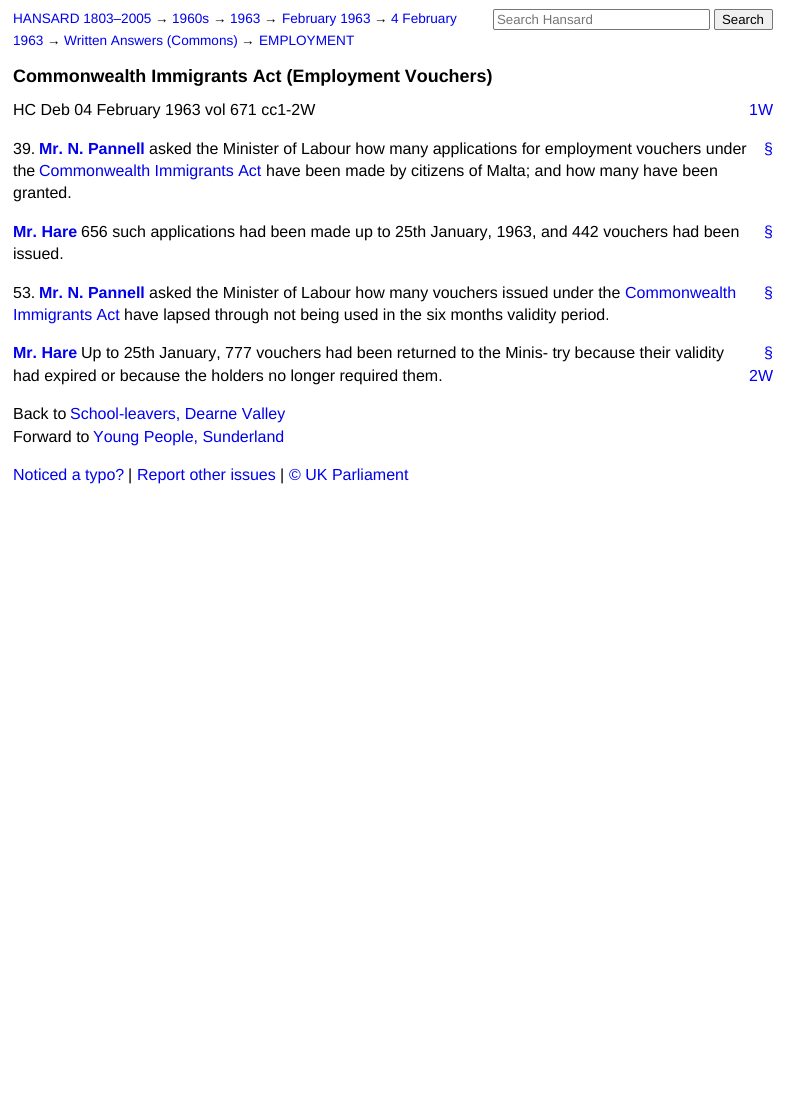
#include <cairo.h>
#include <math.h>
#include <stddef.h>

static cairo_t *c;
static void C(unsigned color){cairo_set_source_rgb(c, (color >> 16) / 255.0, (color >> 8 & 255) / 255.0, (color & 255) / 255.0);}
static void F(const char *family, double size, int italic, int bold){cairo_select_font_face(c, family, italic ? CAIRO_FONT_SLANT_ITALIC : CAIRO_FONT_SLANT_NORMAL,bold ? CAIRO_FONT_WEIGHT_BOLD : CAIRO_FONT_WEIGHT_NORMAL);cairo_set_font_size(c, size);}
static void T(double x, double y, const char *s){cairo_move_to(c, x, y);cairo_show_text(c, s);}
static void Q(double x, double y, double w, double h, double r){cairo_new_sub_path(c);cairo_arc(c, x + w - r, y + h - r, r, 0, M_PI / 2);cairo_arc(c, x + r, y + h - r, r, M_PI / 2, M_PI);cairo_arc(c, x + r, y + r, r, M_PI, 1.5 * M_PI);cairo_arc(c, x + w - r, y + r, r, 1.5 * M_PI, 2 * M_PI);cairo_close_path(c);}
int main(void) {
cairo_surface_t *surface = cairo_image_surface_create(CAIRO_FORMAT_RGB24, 785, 1095);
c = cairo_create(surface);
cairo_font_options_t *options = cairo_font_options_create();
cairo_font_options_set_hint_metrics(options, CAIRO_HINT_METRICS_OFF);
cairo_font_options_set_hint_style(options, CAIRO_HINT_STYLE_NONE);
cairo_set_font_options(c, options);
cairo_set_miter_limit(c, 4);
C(0xffffff);
cairo_paint(c);
F("Liberation Sans",13.6,0,0);
C(0x0000ee);
T(13,23,"HANSARD 1803–2005");
C(0x000000);
T(155,23,"→");
C(0x0000ee);
T(172,23,"1960s");
C(0x000000);
T(213,23,"→");
C(0x0000ee);
T(230,23,"1963");
C(0x000000);
T(264,23,"→");
C(0x0000ee);
T(282,23,"February 1963");
C(0x000000);
T(374,23,"→");
C(0x0000ee);
T(391,23,"4 February");
T(13,45,"1963");
C(0x000000);
T(47,45,"→");
C(0x0000ee);
T(64,45,"Written Answers (Commons)");
C(0x000000);
T(241,45,"→");
C(0x0000ee);
T(259,45,"EMPLOYMENT");
Q(493.5,9.5,216,20,1.5);
C(0x767676);
cairo_set_line_width(c,1);
cairo_stroke(c);
F("Liberation Sans",13.25,0,0);
C(0x757575);
T(497,24,"Search Hansard");
C(0xefefef);
Q(714.5,9.5,58,20,1.5);
cairo_fill_preserve(c);
C(0x767676);
cairo_stroke(c);
C(0x000000);
T(722,24,"Search");
F("Liberation Sans",17.9,0,1);
T(13,82,"Commonwealth Immigrants Act (Employment Vouchers)");
F("Liberation Sans",16,0,0);
T(13,115,"HC Deb 04 February 1963 vol 671 cc1-2W");
C(0x0000ee);
T(749,115,"1W");
C(0x000000);
T(13,154,"39.");
F("Liberation Sans",16,0,1);
C(0x0000ee);
T(39,154,"Mr. N. Pannell");
F("Liberation Sans",16,0,0);
C(0x000000);
T(149,154,"asked the Minister of Labour how many applications for employment vouchers under");
C(0x0000ee);
T(764,154,"§");
C(0x000000);
T(13,176,"the");
C(0x0000ee);
T(39,176,"Commonwealth Immigrants Act");
C(0x000000);
T(266,176,"have been made by citizens of Malta; and how many have been");
T(13,198,"granted.");
F("Liberation Sans",16,0,1);
C(0x0000ee);
T(13,237,"Mr. Hare");
F("Liberation Sans",16,0,0);
C(0x000000);
T(81,237,"656 such applications had been made up to 25th January, 1963, and 442 vouchers had been");
C(0x0000ee);
T(764,237,"§");
C(0x000000);
T(13,259,"issued.");
T(13,298,"53.");
F("Liberation Sans",16,0,1);
C(0x0000ee);
T(39,298,"Mr. N. Pannell");
F("Liberation Sans",16,0,0);
C(0x000000);
T(149,298,"asked the Minister of Labour how many vouchers issued under the");
C(0x0000ee);
T(625,298,"Commonwealth");
T(764,298,"§");
T(13,320,"Immigrants Act");
C(0x000000);
T(124,320,"have lapsed through not being used in the six months validity period.");
T(81,358,"Up to 25th January, 777 vouchers had been returned to the Minis- try because their validity");
T(13,381,"had expired or because the holders no longer required them.");
C(0x0000ee);
T(749,381,"2W");
F("Liberation Sans",16,0,1);
T(13,358,"Mr. Hare");
F("Liberation Sans",16,0,0);
T(764,358,"§");
C(0x000000);
T(13,419,"Back to");
C(0x0000ee);
T(70,419,"School-leavers, Dearne Valley");
C(0x000000);
T(13,442,"Forward to");
C(0x0000ee);
T(93,442,"Young People, Sunderland");
T(13,480,"Noticed a typo?");
C(0x000000);
T(128,480,"|");
C(0x0000ee);
T(137,480,"Report other issues");
C(0x000000);
T(280,480,"|");
C(0x0000ee);
T(289,480,"© UK Parliament");
cairo_surface_write_to_png(surface, "o.png");
cairo_font_options_destroy(options);
cairo_destroy(c);
cairo_surface_destroy(surface);
return 0;
}
